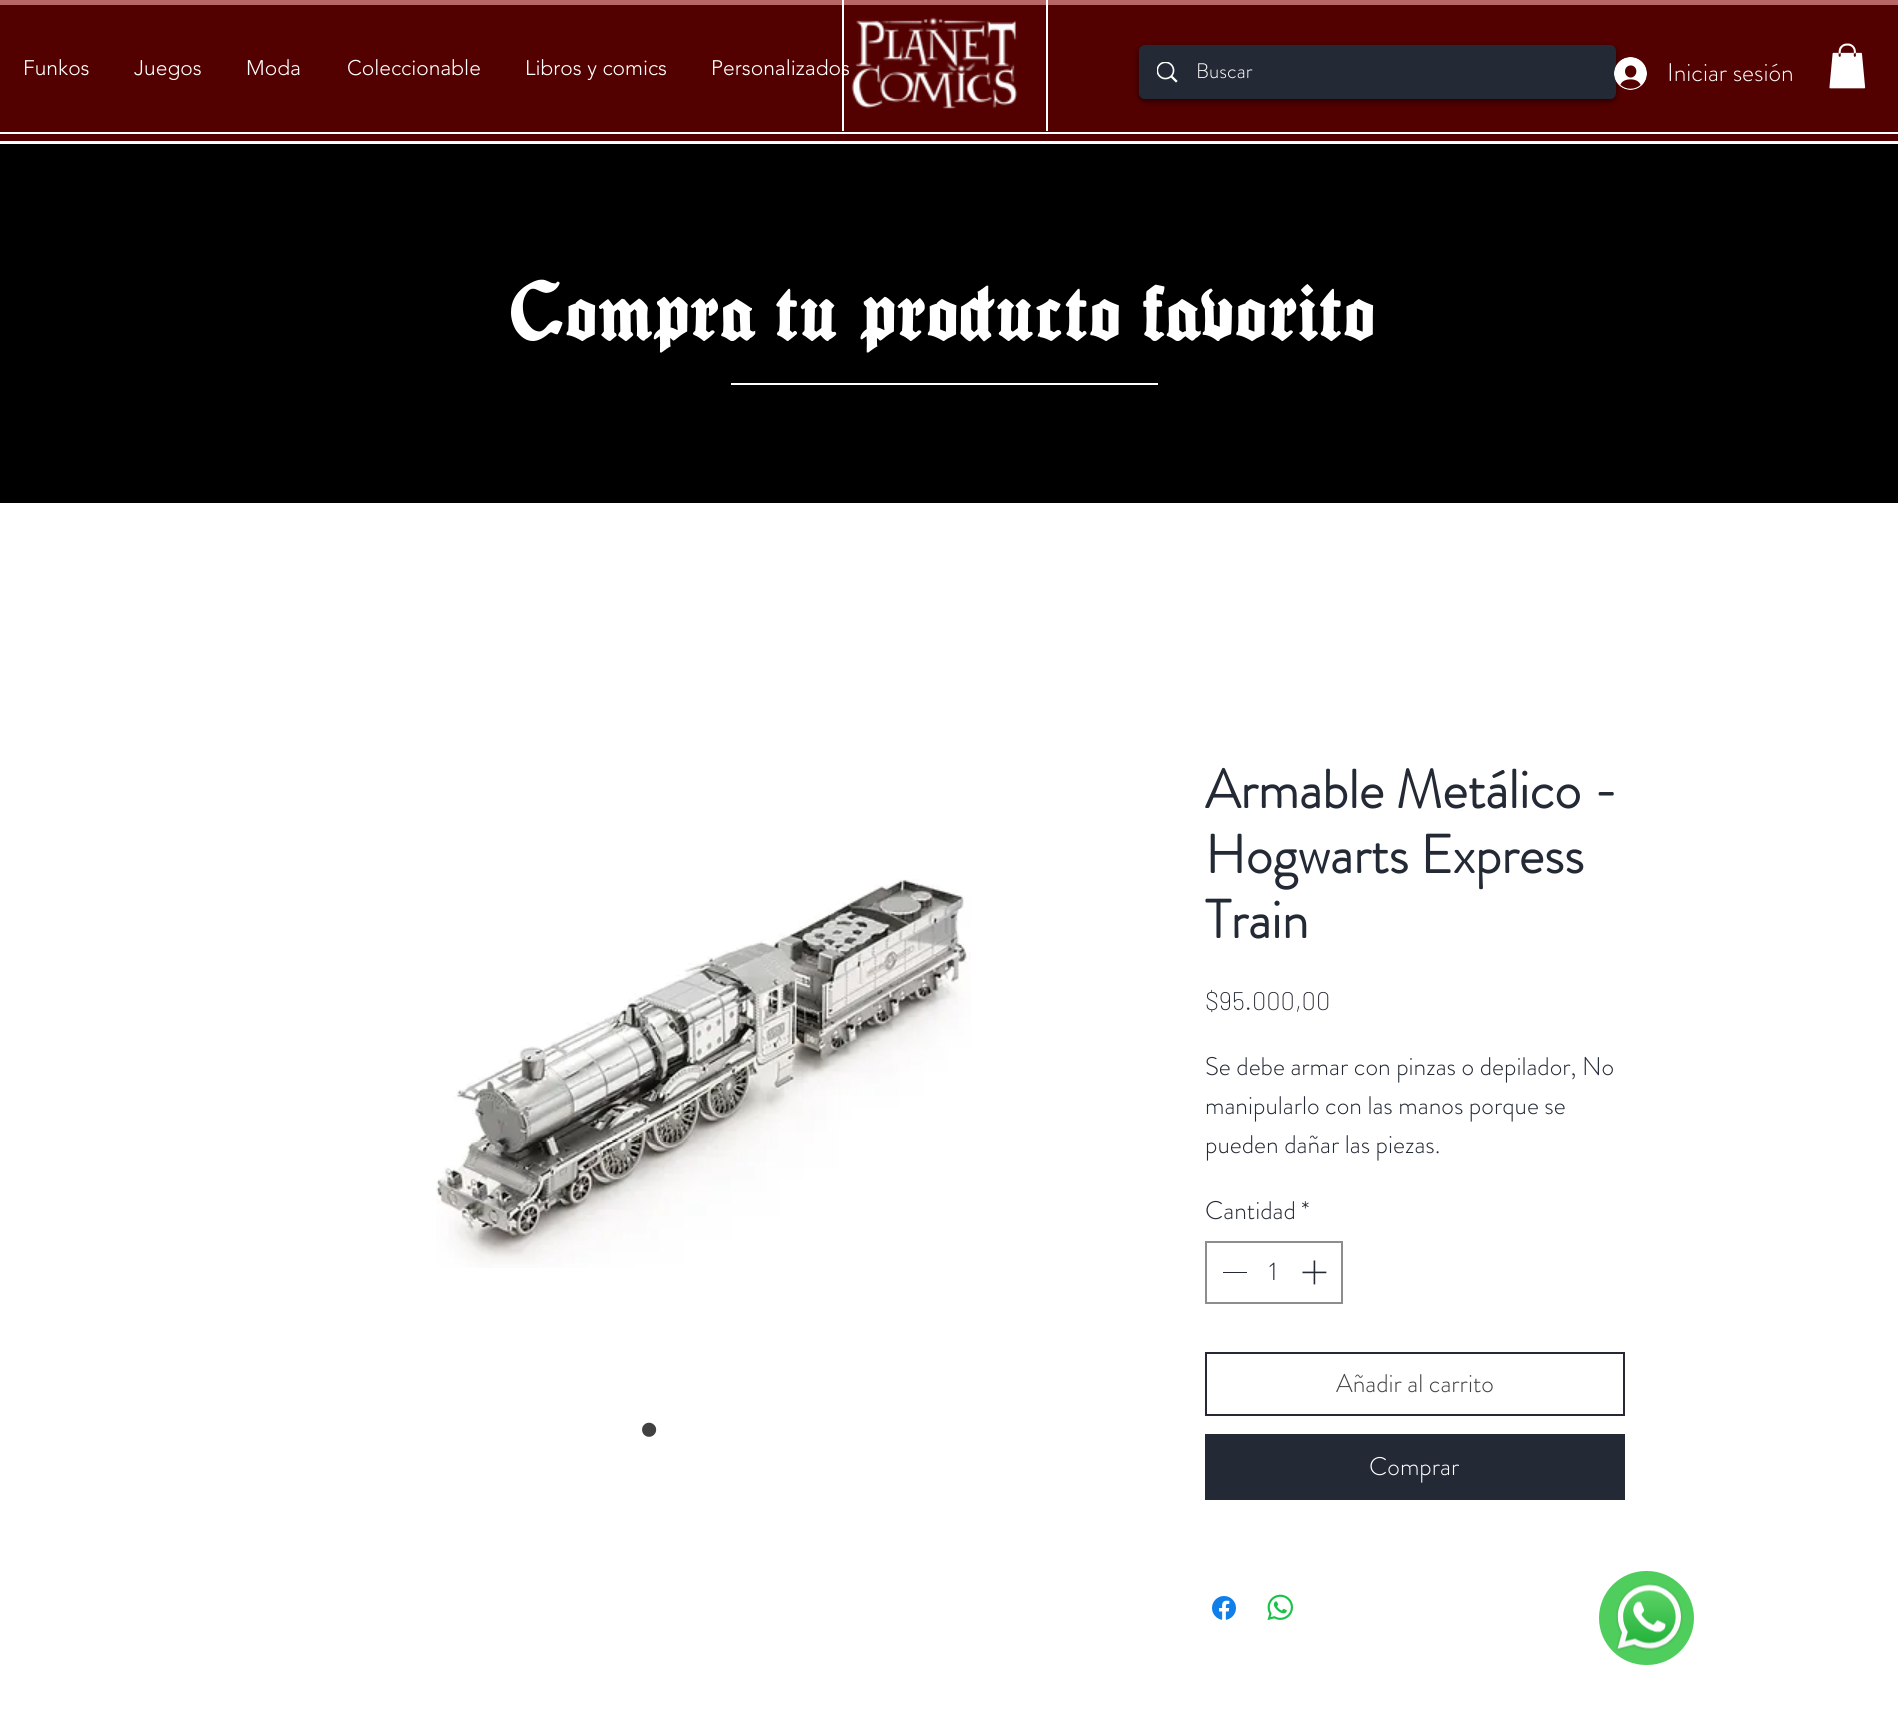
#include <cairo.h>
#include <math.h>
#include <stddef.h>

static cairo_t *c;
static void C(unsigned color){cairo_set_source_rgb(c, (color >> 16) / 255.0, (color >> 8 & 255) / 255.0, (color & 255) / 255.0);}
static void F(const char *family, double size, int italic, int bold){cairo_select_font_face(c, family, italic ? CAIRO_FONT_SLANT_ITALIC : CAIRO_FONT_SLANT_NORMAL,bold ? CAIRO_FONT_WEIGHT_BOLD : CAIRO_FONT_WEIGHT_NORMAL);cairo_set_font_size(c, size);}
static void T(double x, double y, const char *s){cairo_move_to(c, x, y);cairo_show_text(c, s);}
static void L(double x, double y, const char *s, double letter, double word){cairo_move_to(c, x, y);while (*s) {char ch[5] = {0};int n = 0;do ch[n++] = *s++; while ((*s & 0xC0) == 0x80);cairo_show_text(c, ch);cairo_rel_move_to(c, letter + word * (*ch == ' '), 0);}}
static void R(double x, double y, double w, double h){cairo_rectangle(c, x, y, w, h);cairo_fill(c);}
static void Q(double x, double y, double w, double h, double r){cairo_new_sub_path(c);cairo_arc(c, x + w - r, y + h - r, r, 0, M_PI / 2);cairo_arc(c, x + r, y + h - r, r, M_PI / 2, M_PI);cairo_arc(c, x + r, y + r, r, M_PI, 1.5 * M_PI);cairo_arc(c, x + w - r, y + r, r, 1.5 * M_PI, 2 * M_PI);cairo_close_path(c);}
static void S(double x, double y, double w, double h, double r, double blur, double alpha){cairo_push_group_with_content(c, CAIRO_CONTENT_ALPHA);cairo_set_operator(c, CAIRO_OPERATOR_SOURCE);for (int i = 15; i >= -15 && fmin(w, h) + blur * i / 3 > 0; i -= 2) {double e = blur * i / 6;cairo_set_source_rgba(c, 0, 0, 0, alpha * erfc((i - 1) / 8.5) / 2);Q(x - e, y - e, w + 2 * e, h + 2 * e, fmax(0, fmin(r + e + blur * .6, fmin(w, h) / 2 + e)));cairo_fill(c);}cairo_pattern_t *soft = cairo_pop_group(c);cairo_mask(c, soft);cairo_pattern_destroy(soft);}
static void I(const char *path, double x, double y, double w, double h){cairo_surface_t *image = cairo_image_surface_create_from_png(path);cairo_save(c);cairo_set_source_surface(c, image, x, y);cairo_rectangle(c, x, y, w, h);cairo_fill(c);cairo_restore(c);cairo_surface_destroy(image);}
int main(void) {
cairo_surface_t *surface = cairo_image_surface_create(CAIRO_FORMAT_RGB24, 1898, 1727);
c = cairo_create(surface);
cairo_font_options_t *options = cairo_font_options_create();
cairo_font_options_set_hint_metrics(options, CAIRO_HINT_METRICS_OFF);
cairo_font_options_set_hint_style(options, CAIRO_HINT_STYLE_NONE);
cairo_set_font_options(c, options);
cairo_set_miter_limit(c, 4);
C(0xffffff);
cairo_paint(c);
C(0xb96666);
R(0,0,1898,5);
C(0x530000);
R(0,5,1898,136);
F("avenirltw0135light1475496 Light",21,0,0);
C(0xffffff);
T(23,75,"Funkos");
T(134,75,"Juegos");
T(246,75,"Moda");
T(347,75,"Coleccionable");
T(525,75,"Libros y comics");
R(842,0,2,131);
T(711,75,"Personalizados");
I("1.png",851,17,167,92);
R(1046,0,2,131);
C(0x000000);
S(1139,47,477,54,6,3,.6);
C(0x242a35);
Q(1139,45,477,54,6);
cairo_fill(c);
I("2.png",1157,62,21,21);
F("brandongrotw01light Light",21,0,0);
C(0xffffff);
T(1196,78,"Buscar");
R(0,132,1898,2);
I("3.png",1614,57,33,33);
F("brandongrotw01light Light",25.5,0,0);
T(1667,81,"Iniciar sesión");
I("4.png",1829,43,37,46);
C(0x000000);
R(0,144,1898,359);
F("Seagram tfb",69,0,1);
C(0xffffff);
L(511,341,"Compra tu producto favorito",3.45,0);
R(731,383,427,2);
I("5.png",436,879,535,389);
F("Liberation Sans",52,0,0);
C(0x414141);
T(640,1447,"•");
F("brandongrotw01light",54,0,1);
C(0x242a35);
T(1205,808,"Armable Metálico -");
T(1205,873,"Hogwarts Express");
T(1205,938,"Train");
F("Barlow ExtraLight",25.5,0,0);
T(1205,1010,"$95.000,00");
F("brandongrotw01light Light",25.5,0,0);
T(1205,1075,"Se debe armar con pinzas o depilador, No");
T(1205,1114,"manipularlo con las manos porque se");
T(1205,1153,"pueden dañar las piezas.");
T(1205,1219,"Cantidad");
T(1301,1219,"*");
cairo_rectangle(c,1206,1242,136,61);
C(0x8d8d8d);
cairo_stroke(c);
C(0x242a35);
R(1223,1272,24,1);
T(1269,1280,"1");
I("6.png",1302,1260,25,25);
cairo_rectangle(c,1206,1353,418,62);
cairo_stroke(c);
C(0x414141);
T(1336,1392,"Añadir al carrito");
C(0x242a35);
R(1205,1434,420,66);
C(0xffffff);
T(1369,1475,"Comprar");
I("7.png",1212,1596,24,24);
I("8.png",1267,1594,26,27);
C(0x4fce5d);
Q(1599,1571,95,94,47);
cairo_fill(c);
I("9.png",1616,1583,67,68);
cairo_surface_write_to_png(surface, "o.png");
cairo_font_options_destroy(options);
cairo_destroy(c);
cairo_surface_destroy(surface);
return 0;
}
